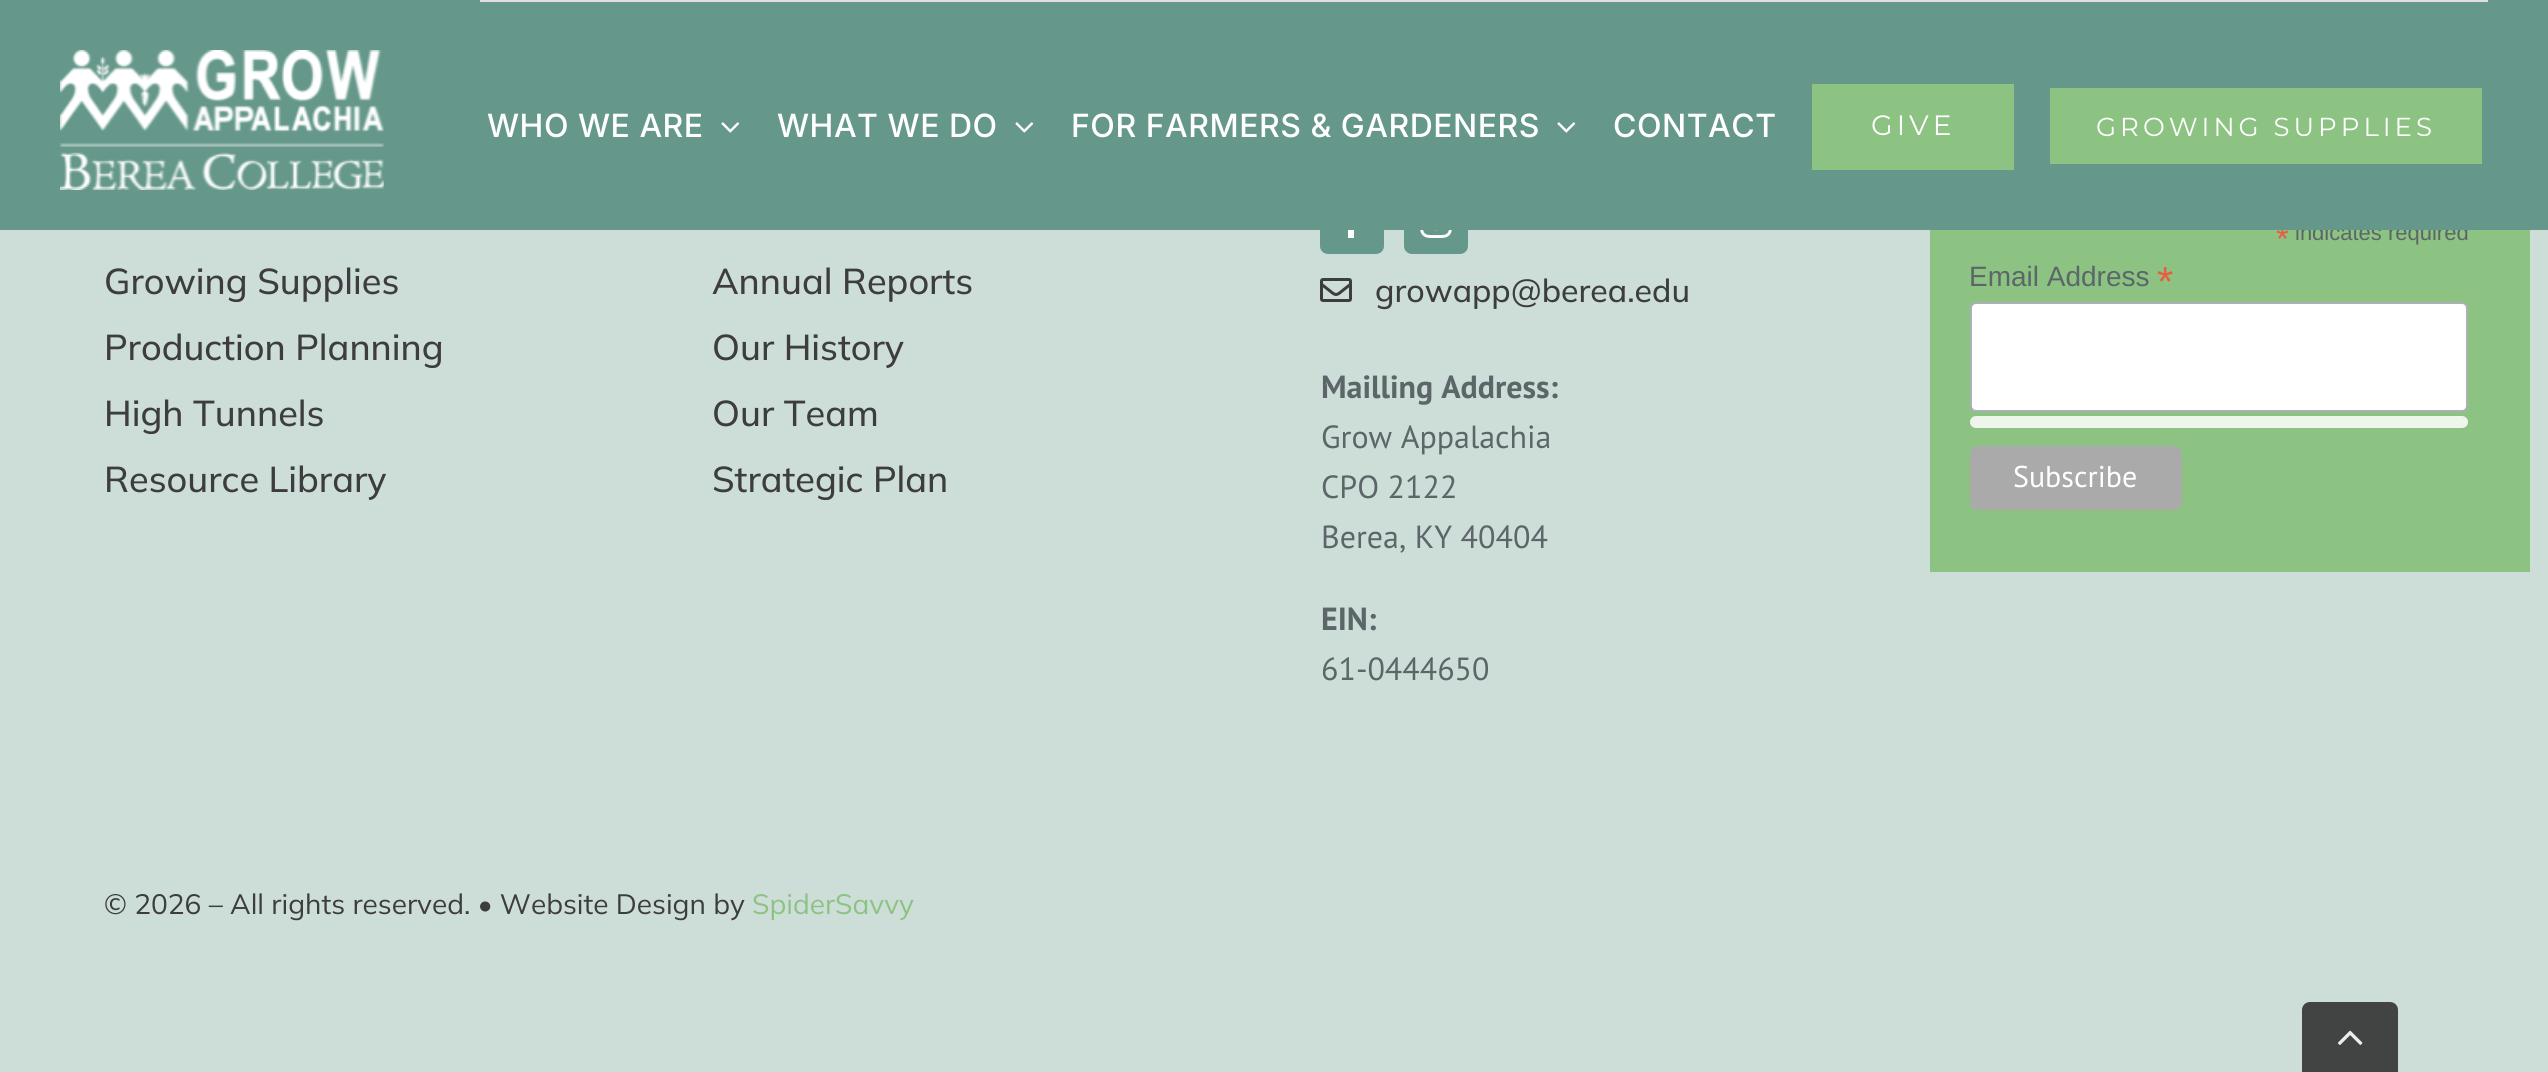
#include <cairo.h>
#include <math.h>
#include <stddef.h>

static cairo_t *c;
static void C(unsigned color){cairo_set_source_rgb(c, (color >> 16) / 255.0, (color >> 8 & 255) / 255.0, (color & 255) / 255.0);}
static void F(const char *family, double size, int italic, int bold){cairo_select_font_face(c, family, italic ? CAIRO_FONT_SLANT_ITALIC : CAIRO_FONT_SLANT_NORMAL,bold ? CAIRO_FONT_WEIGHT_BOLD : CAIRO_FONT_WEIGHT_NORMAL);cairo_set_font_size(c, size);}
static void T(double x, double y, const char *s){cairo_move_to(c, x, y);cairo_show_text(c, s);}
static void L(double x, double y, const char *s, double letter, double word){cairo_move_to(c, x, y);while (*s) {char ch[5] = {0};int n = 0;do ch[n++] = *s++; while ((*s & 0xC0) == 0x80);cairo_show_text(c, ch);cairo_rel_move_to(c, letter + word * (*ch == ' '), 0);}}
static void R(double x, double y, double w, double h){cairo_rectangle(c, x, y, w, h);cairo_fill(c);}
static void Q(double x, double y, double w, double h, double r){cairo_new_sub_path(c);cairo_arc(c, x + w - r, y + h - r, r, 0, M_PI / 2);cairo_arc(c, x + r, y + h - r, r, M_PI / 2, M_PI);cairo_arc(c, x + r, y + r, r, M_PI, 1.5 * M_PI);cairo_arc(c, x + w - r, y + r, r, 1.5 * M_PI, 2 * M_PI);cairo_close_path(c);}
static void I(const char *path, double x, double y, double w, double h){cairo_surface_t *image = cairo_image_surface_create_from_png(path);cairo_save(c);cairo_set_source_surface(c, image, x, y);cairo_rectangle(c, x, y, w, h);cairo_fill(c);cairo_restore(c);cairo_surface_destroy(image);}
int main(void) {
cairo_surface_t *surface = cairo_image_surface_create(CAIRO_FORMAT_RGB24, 2548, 1072);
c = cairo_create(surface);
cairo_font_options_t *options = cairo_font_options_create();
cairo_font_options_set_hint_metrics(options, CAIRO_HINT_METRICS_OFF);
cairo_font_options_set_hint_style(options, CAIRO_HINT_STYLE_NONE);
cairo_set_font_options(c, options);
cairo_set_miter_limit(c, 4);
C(0xcdded9);
cairo_paint(c);
C(0x65988a);
Q(1320,190,64,64,8);
cairo_fill(c);
Q(1404,190,64,64,8);
cairo_fill(c);
C(0x8cc383);
R(1930,230,600,342);
F("Liberation Sans",33,0,0);
C(0xe85c41);
T(2276,250,"*");
F("Liberation Sans",22,0,0);
C(0x5c6668);
T(2295,240,"indicates required");
C(0x65988a);
R(0,0,2548,230);
I("1.png",60,50,324,140);
C(0xe0dede);
R(480,0,2008,2);
F("Inter Medium",32,0,0);
C(0xffffff);
L(487,137,"WHO WE ARE",.5,0);
I("2.png",721,122,19,11);
L(777,137,"WHAT WE DO",.5,0);
I("2.png",1015,122,19,11);
L(1071,137,"FOR FARMERS & GARDENERS",.5,0);
I("2.png",1557,122,19,11);
L(1613,137,"CONTACT",.5,0);
C(0x8cc383);
R(1812,84,202,86);
F("Montserrat Thin",28,0,0);
C(0xffffff);
L(1871,135,"GIVE",4,0);
C(0x8cc383);
R(2050,88,432,76);
F("Montserrat Thin",26,0,0);
C(0xffffff);
L(2096,136,"GROWING SUPPLIES",4,0);
F("Mulish Medium",36,0,0);
C(0x3d3c3e);
T(104,294,"Growing Supplies");
T(104,360,"Production Planning");
T(104,426,"High Tunnels");
T(104,492,"Resource Library");
T(712,294,"Annual Reports");
T(712,360,"Our History");
T(712,426,"Our Team");
T(712,492,"Strategic Plan");
I("3.png",1348,230,6,8);
I("4.png",1420,230,32,8);
I("5.png",1320,278,32,24);
F("Mulish Medium",32,0,0);
T(1375,302,"growapp@berea.edu");
F("PT Sans",32,0,1);
C(0x5c6668);
T(1321,398,"Mailling Address:");
F("PT Sans",32,0,0);
T(1321,448,"Grow Appalachia");
T(1321,498,"CPO 2122");
T(1321,548,"Berea, KY 40404");
F("PT Sans",32,0,1);
T(1321,630,"EIN:");
F("PT Sans",32,0,0);
T(1321,680,"61-0444650");
F("Liberation Sans",28,0,0);
T(1969,286,"Email Address");
F("Liberation Sans",42,0,0);
C(0xe85c41);
T(2157,296,"*");
C(0xffffff);
Q(1971,303,496,108,5);
cairo_fill_preserve(c);
C(0xabb0b2);
cairo_stroke(c);
C(0xeef6ec);
Q(1970,416,498,12,6);
cairo_fill(c);
C(0xaaaaaa);
Q(1970,446,212,64,8);
cairo_fill(c);
F("PT Sans",30,0,0);
C(0xffffff);
T(2013,487,"Subscribe");
F("Mulish",28,0,0);
C(0x3d3c3e);
T(104,914,"© 2026 – All rights reserved. • Website Design by");
C(0x8cc383);
T(752,914,"SpiderSavvy");
C(0x424444);
cairo_new_path(c);
cairo_move_to(c,2310,1002);
cairo_line_to(c,2390,1002);
cairo_curve_to(c,2394.5,1002,2398,1005.5,2398,1010);
cairo_line_to(c,2398,1072);
cairo_line_to(c,2302,1072);
cairo_line_to(c,2302,1010);
cairo_curve_to(c,2302,1005.5,2305.5,1002,2310,1002);
cairo_close_path(c);
cairo_fill(c);
I("6.png",2338,1030,25,15);
cairo_surface_write_to_png(surface, "o.png");
cairo_font_options_destroy(options);
cairo_destroy(c);
cairo_surface_destroy(surface);
return 0;
}
